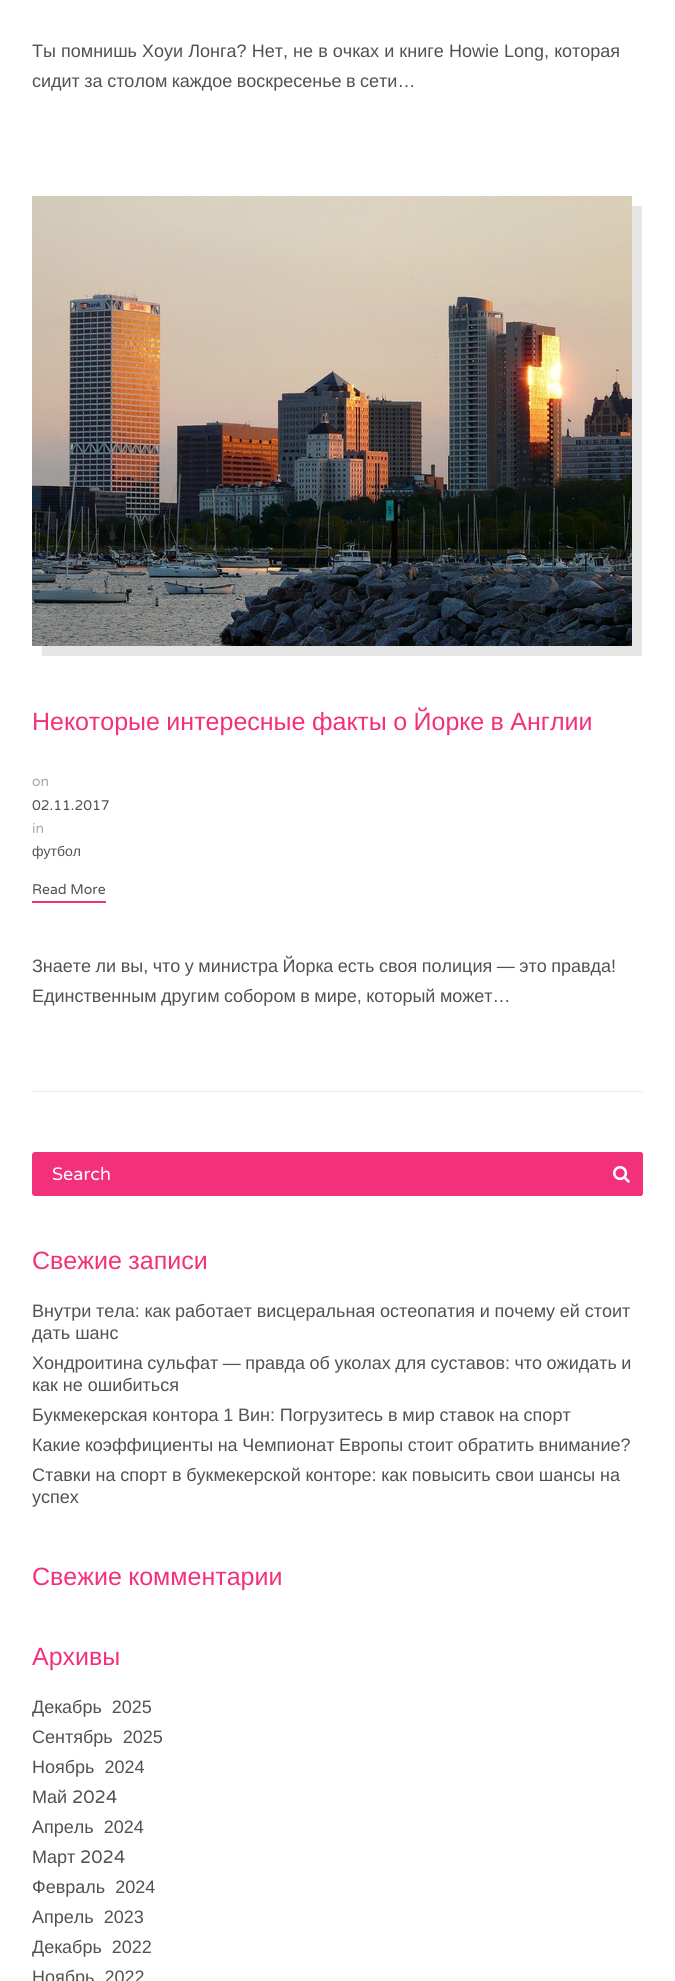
#include <cairo.h>
#include <math.h>
#include <stddef.h>

static cairo_t *c;
static void C(unsigned color){cairo_set_source_rgb(c, (color >> 16) / 255.0, (color >> 8 & 255) / 255.0, (color & 255) / 255.0);}
static void F(const char *family, double size, int italic, int bold){cairo_select_font_face(c, family, italic ? CAIRO_FONT_SLANT_ITALIC : CAIRO_FONT_SLANT_NORMAL,bold ? CAIRO_FONT_WEIGHT_BOLD : CAIRO_FONT_WEIGHT_NORMAL);cairo_set_font_size(c, size);}
static void T(double x, double y, const char *s){cairo_move_to(c, x, y);cairo_show_text(c, s);}
static void L(double x, double y, const char *s, double letter, double word){cairo_move_to(c, x, y);while (*s) {char ch[5] = {0};int n = 0;do ch[n++] = *s++; while ((*s & 0xC0) == 0x80);cairo_show_text(c, ch);cairo_rel_move_to(c, letter + word * (*ch == ' '), 0);}}
static void R(double x, double y, double w, double h){cairo_rectangle(c, x, y, w, h);cairo_fill(c);}
static void Q(double x, double y, double w, double h, double r){cairo_new_sub_path(c);cairo_arc(c, x + w - r, y + h - r, r, 0, M_PI / 2);cairo_arc(c, x + r, y + h - r, r, M_PI / 2, M_PI);cairo_arc(c, x + r, y + r, r, M_PI, 1.5 * M_PI);cairo_arc(c, x + w - r, y + r, r, 1.5 * M_PI, 2 * M_PI);cairo_close_path(c);}
static void I(const char *path, double x, double y, double w, double h){cairo_surface_t *image = cairo_image_surface_create_from_png(path);cairo_save(c);cairo_set_source_surface(c, image, x, y);cairo_rectangle(c, x, y, w, h);cairo_fill(c);cairo_restore(c);cairo_surface_destroy(image);}
int main(void) {
cairo_surface_t *surface = cairo_image_surface_create(CAIRO_FORMAT_RGB24, 675, 1981);
c = cairo_create(surface);
cairo_font_options_t *options = cairo_font_options_create();
cairo_font_options_set_hint_metrics(options, CAIRO_HINT_METRICS_OFF);
cairo_font_options_set_hint_style(options, CAIRO_HINT_STYLE_NONE);
cairo_set_font_options(c, options);
cairo_set_miter_limit(c, 4);
C(0xffffff);
cairo_paint(c);
F("Liberation Sans",18,0,0);
C(0x515151);
L(32,57,"Ты помнишь Хоуи Лонга? Нет, не в очках и книге Howie Long, которая",0,.1);
L(32,87,"сидит за столом каждое воскресенье в сети…",0,-.5);
C(0xe6e6e6);
cairo_new_path(c);
cairo_move_to(c,42,646);
cairo_line_to(c,42,656);
cairo_line_to(c,642,656);
cairo_line_to(c,642,206);
cairo_line_to(c,632,206);
cairo_line_to(c,632,646);
cairo_close_path(c);
cairo_fill(c);
I("1.png",32,196,600,450);
F("Liberation Sans",25,0,0);
C(0xf3317a);
L(32,730,"Некоторые интересные факты о Йорке в Англии",0,-.5);
F("Varela Round",14,0,0);
C(0xa8a8a8);
T(32,786,"on");
C(0x515151);
T(32,810,"02.11.2017");
C(0xa8a8a8);
T(32,833,"in");
F("Liberation Sans",14,0,0);
C(0x515151);
T(32,856,"футбол");
F("Varela Round",14,0,0);
T(32,894,"Read More");
C(0xf3317a);
R(32,901,74,2);
F("Liberation Sans",18,0,0);
C(0x515151);
L(32,972,"Знаете ли вы, что у министра Йорка есть своя полиция — это правда!",0,-.5);
L(32,1002,"Единственным другим собором в мире, который может…",0,-.5);
C(0xeaeaea);
R(32,1091,611,1);
C(0xf3317a);
Q(32,1152,611,44,3);
cairo_fill(c);
F("Varela Round",18,0,0);
C(0xfcfcfc);
T(52,1180,"Search");
C(0xf3317a);
Q(599,1152,44,44,3);
cairo_fill(c);
I("2.png",613,1166,17,17);
F("Liberation Sans",25,0,0);
L(32,1269,"Свежие записи",0,-.5);
F("Liberation Sans",18,0,0);
C(0x515151);
L(32,1317,"Внутри тела: как работает висцеральная остеопатия и почему ей стоит",0,-.25);
T(32,1339,"дать шанс");
L(32,1369,"Хондроитина сульфат — правда об уколах для суставов: что ожидать и",0,-.5);
T(32,1391,"как не ошибиться");
L(32,1421,"Букмекерская контора 1 Вин: Погрузитесь в мир ставок на спорт",0,-.25);
L(32,1451,"Какие коэффициенты на Чемпионат Европы стоит обратить внимание?",0,-.5);
L(32,1481,"Ставки на спорт в букмекерской конторе: как повысить свои шансы на",0,-.25);
T(32,1503,"успех");
F("Liberation Sans",25,0,0);
C(0xf3317a);
L(32,1585,"Свежие комментарии",0,-.5);
T(32,1665,"Архивы");
F("Liberation Sans",18,0,0);
C(0x515151);
L(32,1713,"Декабрь 2025",0,5);
L(32,1743,"Сентябрь 2025",0,5);
L(32,1773,"Ноябрь 2024",0,5);
T(32,1803,"Май");
F("Varela Round",18,0,0);
T(72,1803,"2024");
F("Liberation Sans",18,0,0);
L(32,1833,"Апрель 2024",0,5);
T(32,1863,"Март");
F("Varela Round",18,0,0);
T(80,1863,"2024");
F("Liberation Sans",18,0,0);
L(32,1893,"Февраль 2024",0,5);
L(32,1923,"Апрель 2023",0,5);
L(32,1953,"Декабрь 2022",0,5);
L(32,1983,"Ноябрь 2022",0,5);
cairo_surface_write_to_png(surface, "o.png");
cairo_font_options_destroy(options);
cairo_destroy(c);
cairo_surface_destroy(surface);
return 0;
}
